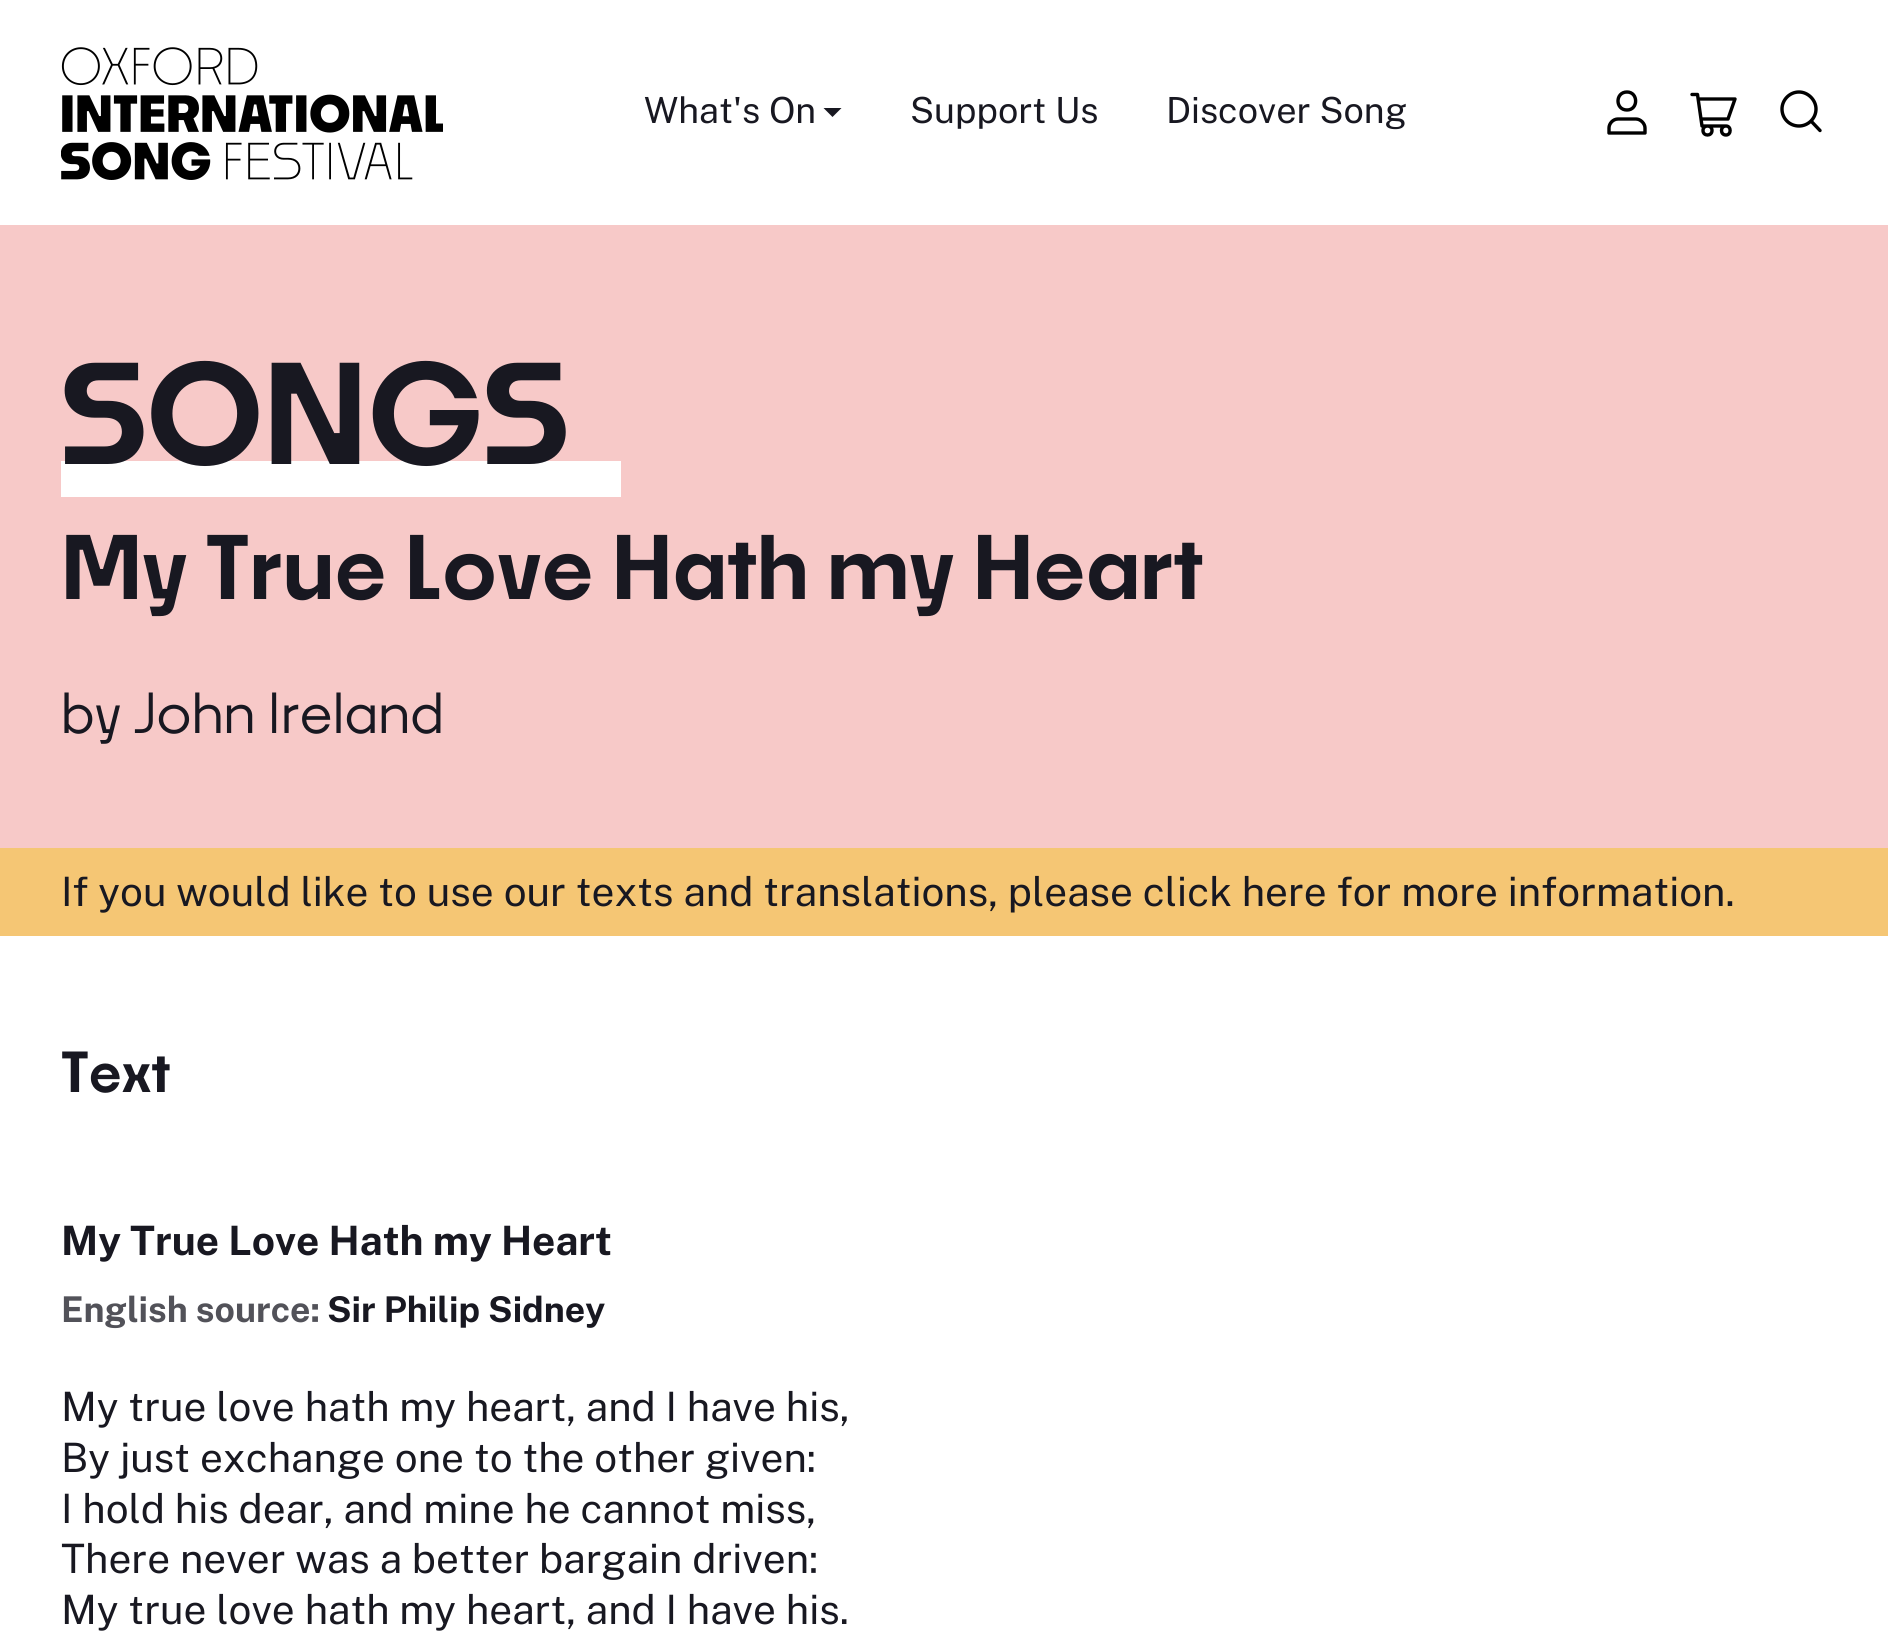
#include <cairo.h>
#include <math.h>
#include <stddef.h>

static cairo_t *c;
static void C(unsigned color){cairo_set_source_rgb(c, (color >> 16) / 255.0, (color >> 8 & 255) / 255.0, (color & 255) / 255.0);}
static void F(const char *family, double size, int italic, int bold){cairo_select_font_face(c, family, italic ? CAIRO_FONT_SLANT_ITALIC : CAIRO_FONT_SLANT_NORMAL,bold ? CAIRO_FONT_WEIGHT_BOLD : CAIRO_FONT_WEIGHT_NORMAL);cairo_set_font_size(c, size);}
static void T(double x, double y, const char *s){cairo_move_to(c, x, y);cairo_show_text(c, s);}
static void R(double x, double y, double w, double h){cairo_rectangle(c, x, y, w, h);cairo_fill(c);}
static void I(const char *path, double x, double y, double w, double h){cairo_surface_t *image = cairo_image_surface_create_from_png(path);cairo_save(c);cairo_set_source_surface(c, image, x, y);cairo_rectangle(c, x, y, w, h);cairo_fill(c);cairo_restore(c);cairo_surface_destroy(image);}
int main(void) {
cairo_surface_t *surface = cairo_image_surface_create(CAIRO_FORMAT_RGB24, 1888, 1648);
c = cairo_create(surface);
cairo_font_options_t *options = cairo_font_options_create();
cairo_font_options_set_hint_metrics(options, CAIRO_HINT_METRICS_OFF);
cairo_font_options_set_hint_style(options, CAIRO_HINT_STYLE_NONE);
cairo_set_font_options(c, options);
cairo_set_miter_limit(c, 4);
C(0xffffff);
cairo_paint(c);
I("1.png",61,47,382,133);
F("Public Sans",36,0,0);
C(0x181821);
T(644,123,"What's On");
cairo_new_path(c);
cairo_move_to(c,823.5,108);
cairo_line_to(c,841.5,108);
cairo_line_to(c,832.5,117);
cairo_close_path(c);
cairo_fill(c);
T(910,123,"Support Us");
T(1166,123,"Discover Song");
cairo_new_path(c);
cairo_move_to(c,1636,119);
cairo_line_to(c,1618,119);
cairo_curve_to(c,1613,119,1609,123.5,1609,128);
cairo_line_to(c,1609,133);
cairo_line_to(c,1645,133);
cairo_line_to(c,1645,128);
cairo_curve_to(c,1645,123.5,1640.5,119,1636,119);
cairo_close_path(c);
cairo_move_to(c,1627,110);
cairo_curve_to(c,1638.5,110,1638.5,92,1627,92);
cairo_curve_to(c,1615,92,1615,110,1627,110);
cairo_close_path(c);
C(0x000000);
cairo_set_line_width(c,3.4);
cairo_set_line_cap(c,CAIRO_LINE_CAP_ROUND);
cairo_set_line_join(c,CAIRO_LINE_JOIN_ROUND);
cairo_stroke(c);
cairo_new_path(c);
cairo_move_to(c,1692,94.5);
cairo_line_to(c,1697.5,94.5);
cairo_line_to(c,1702,126);
cairo_line_to(c,1726,126);
cairo_move_to(c,1726,126);
cairo_curve_to(c,1720,126,1720,135,1726,135);
cairo_curve_to(c,1731.5,135,1731.5,126,1726,126);
cairo_close_path(c);
cairo_move_to(c,1701,119);
cairo_line_to(c,1728,119);
cairo_line_to(c,1735,99);
cairo_line_to(c,1698.5,99);
cairo_move_to(c,1712,130.5);
cairo_curve_to(c,1712,136.5,1703,136.5,1703,130.5);
cairo_curve_to(c,1703,124.5,1712,124.5,1712,130.5);
cairo_close_path(c);
cairo_stroke(c);
cairo_new_path(c);
cairo_move_to(c,1820,130.5);
cairo_line_to(c,1811,121);
cairo_move_to(c,1816,109);
cairo_curve_to(c,1816,100,1808,92,1799,92);
cairo_curve_to(c,1789.5,92,1782,100,1782,109);
cairo_curve_to(c,1782,118.5,1789.5,126,1799,126);
cairo_curve_to(c,1808,126,1816,118.5,1816,109);
cairo_close_path(c);
cairo_stroke(c);
C(0xf7c9c8);
R(0,225,1888,623);
C(0xffffff);
R(61,461,560,36);
F("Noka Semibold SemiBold",135,0,0);
C(0x181821);
T(61,464,"SONGS");
F("Noka Semibold SemiBold",85.5,0,0);
T(61,599,"My True Love Hath my Heart");
F("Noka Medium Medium",54,0,0);
T(61,733,"by John Ireland");
C(0xf5c674);
R(0,848,1888,88);
F("Public Sans",40.5,0,0);
C(0x181821);
T(61,906,"If you would like to use our texts and translations, please click here for more information.");
F("Noka Semibold SemiBold",54,0,0);
T(61,1092,"Text");
F("Public Sans",40.5,0,1);
T(61,1255,"My True Love Hath my Heart");
F("Public Sans",35.5,0,1);
C(0x525259);
T(61,1322,"English source:");
C(0x181821);
T(327,1322,"Sir Philip Sidney");
F("Public Sans",40.5,0,0);
T(61,1421,"My true love hath my heart, and I have his,");
T(61,1472,"By just exchange one to the other given:");
T(61,1523,"I hold his dear, and mine he cannot miss,");
T(61,1573,"There never was a better bargain driven:");
T(61,1624,"My true love hath my heart, and I have his.");
cairo_surface_write_to_png(surface, "o.png");
cairo_font_options_destroy(options);
cairo_destroy(c);
cairo_surface_destroy(surface);
return 0;
}
